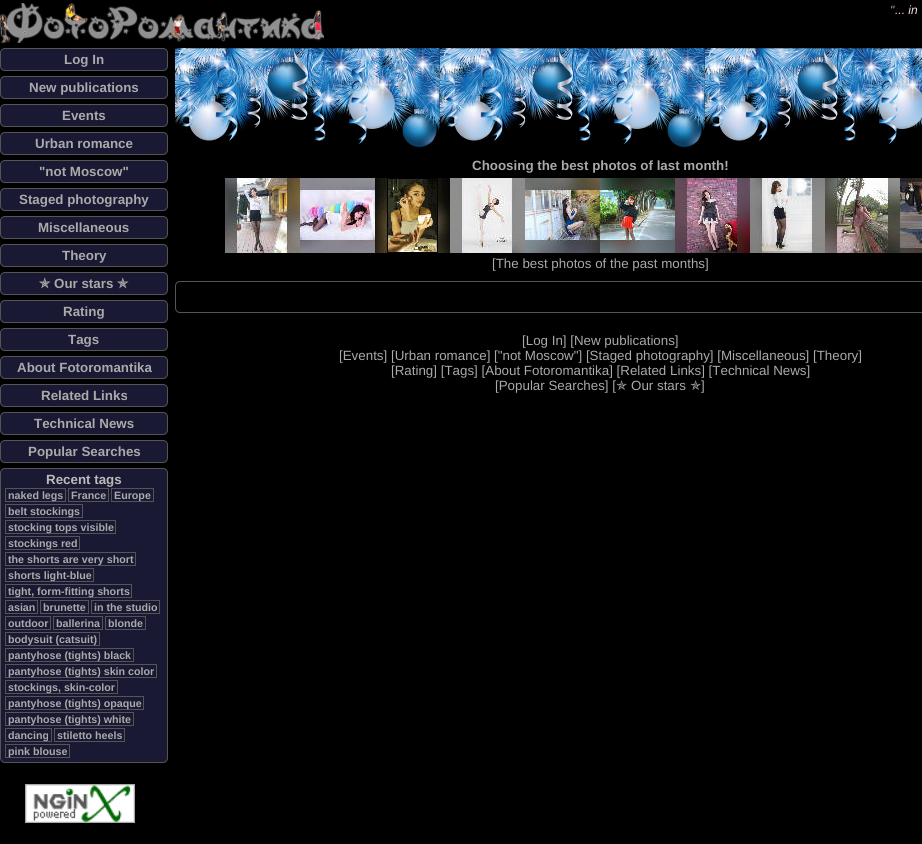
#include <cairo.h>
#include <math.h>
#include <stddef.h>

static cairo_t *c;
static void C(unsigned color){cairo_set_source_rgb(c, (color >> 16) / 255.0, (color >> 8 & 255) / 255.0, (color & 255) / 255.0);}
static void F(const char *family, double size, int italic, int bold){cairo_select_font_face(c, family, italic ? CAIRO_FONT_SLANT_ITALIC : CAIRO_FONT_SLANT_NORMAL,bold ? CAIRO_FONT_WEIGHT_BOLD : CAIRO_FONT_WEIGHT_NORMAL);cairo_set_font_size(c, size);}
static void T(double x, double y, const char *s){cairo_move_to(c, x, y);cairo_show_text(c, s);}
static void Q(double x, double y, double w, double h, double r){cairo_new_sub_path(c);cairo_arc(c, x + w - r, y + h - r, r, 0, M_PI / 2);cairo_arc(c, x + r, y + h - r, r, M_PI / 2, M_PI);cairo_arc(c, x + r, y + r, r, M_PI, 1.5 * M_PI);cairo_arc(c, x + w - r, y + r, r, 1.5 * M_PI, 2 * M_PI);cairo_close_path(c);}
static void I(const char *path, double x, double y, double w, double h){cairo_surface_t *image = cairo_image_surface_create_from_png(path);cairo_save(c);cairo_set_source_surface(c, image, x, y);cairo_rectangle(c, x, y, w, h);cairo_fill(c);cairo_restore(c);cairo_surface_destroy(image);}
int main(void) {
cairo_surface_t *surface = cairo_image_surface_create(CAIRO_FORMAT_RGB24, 922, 844);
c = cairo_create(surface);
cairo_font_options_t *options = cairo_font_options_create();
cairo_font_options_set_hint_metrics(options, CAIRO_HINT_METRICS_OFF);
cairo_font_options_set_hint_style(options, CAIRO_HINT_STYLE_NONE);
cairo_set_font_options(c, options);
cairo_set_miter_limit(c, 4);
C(0x000000);
cairo_paint(c);
I("1.png",0,3,324,40);
F("Liberation Sans",12,1,0);
C(0xaaaaaa);
T(890,14,"\"");
C(0xffdddd);
T(895,14,"... in");
C(0x191933);
Q(.5,48.5,167,22,4.5);
cairo_fill_preserve(c);
C(0x555555);
cairo_set_line_width(c,1);
cairo_stroke(c);
F("Liberation Sans",13.35,0,1);
C(0xaaaaaa);
T(64,64,"Log In");
C(0x191933);
Q(.5,76.5,167,22,4.5);
cairo_fill_preserve(c);
C(0x555555);
cairo_stroke(c);
C(0xaaaaaa);
T(29,92,"New publications");
C(0x191933);
Q(.5,104.5,167,22,4.5);
cairo_fill_preserve(c);
C(0x555555);
cairo_stroke(c);
C(0xaaaaaa);
T(62,120,"Events");
C(0x191933);
Q(.5,132.5,167,22,4.5);
cairo_fill_preserve(c);
C(0x555555);
cairo_stroke(c);
C(0xaaaaaa);
T(35,148,"Urban romance");
C(0x191933);
Q(.5,160.5,167,22,4.5);
cairo_fill_preserve(c);
C(0x555555);
cairo_stroke(c);
C(0xaaaaaa);
T(39,176,"\"not Moscow\"");
C(0x191933);
Q(.5,188.5,167,22,4.5);
cairo_fill_preserve(c);
C(0x555555);
cairo_stroke(c);
C(0xaaaaaa);
T(19,204,"Staged photography");
C(0x191933);
Q(.5,216.5,167,22,4.5);
cairo_fill_preserve(c);
C(0x555555);
cairo_stroke(c);
C(0xaaaaaa);
T(38,232,"Miscellaneous");
C(0x191933);
Q(.5,244.5,167,22,4.5);
cairo_fill_preserve(c);
C(0x555555);
cairo_stroke(c);
C(0xaaaaaa);
T(62,260,"Theory");
C(0x191933);
Q(.5,272.5,167,22,4.5);
cairo_fill_preserve(c);
C(0x555555);
cairo_stroke(c);
F("DejaVu Sans",13.35,0,1);
C(0xaaaaaa);
T(39,288,"✯");
F("Liberation Sans",13.35,0,1);
T(54,288,"Our stars");
F("DejaVu Sans",13.35,0,1);
T(117,288,"✯");
C(0x191933);
Q(.5,300.5,167,22,4.5);
cairo_fill_preserve(c);
C(0x555555);
cairo_stroke(c);
F("Liberation Sans",13.35,0,1);
C(0xaaaaaa);
T(63,316,"Rating");
C(0x191933);
Q(.5,328.5,167,22,4.5);
cairo_fill_preserve(c);
C(0x555555);
cairo_stroke(c);
C(0xaaaaaa);
T(68,344,"Tags");
C(0x191933);
Q(.5,356.5,167,22,4.5);
cairo_fill_preserve(c);
C(0x555555);
cairo_stroke(c);
C(0xaaaaaa);
T(17,372,"About Fotoromantika");
C(0x191933);
Q(.5,384.5,167,22,4.5);
cairo_fill_preserve(c);
C(0x555555);
cairo_stroke(c);
C(0xaaaaaa);
T(41,400,"Related Links");
C(0x191933);
Q(.5,412.5,167,22,4.5);
cairo_fill_preserve(c);
C(0x555555);
cairo_stroke(c);
C(0xaaaaaa);
T(34,428,"Technical News");
C(0x191933);
Q(.5,440.5,167,22,4.5);
cairo_fill_preserve(c);
C(0x555555);
cairo_stroke(c);
C(0xaaaaaa);
T(28,456,"Popular Searches");
C(0x191933);
Q(.5,468.5,167,294,4.5);
cairo_fill_preserve(c);
C(0x555555);
cairo_stroke(c);
C(0xbbbbbb);
T(46,484,"Recent tags");
cairo_rectangle(c,5.5,488.5,60,13);
C(0x555555);
cairo_stroke(c);
F("Liberation Sans",10.7,0,1);
C(0xaaaaaa);
T(8,499,"naked legs");
cairo_rectangle(c,68.5,488.5,40,13);
C(0x555555);
cairo_stroke(c);
C(0xaaaaaa);
T(71,499,"France");
cairo_rectangle(c,111.5,488.5,42,13);
C(0x555555);
cairo_stroke(c);
C(0xaaaaaa);
T(114,499,"Europe");
cairo_rectangle(c,5.5,504.5,77,13);
C(0x555555);
cairo_stroke(c);
C(0xaaaaaa);
T(8,515,"belt stockings");
cairo_rectangle(c,5.5,520.5,110,13);
C(0x555555);
cairo_stroke(c);
C(0xaaaaaa);
T(8,531,"stocking tops visible");
cairo_rectangle(c,5.5,536.5,74,13);
C(0x555555);
cairo_stroke(c);
C(0xaaaaaa);
T(8,547,"stockings red");
cairo_rectangle(c,5.5,552.5,130,13);
C(0x555555);
cairo_stroke(c);
C(0xaaaaaa);
T(8,563,"the shorts are very short");
cairo_rectangle(c,5.5,568.5,88,13);
C(0x555555);
cairo_stroke(c);
C(0xaaaaaa);
T(8,579,"shorts light-blue");
cairo_rectangle(c,5.5,584.5,126,13);
C(0x555555);
cairo_stroke(c);
C(0xaaaaaa);
T(8,595,"tight, form-fitting shorts");
cairo_rectangle(c,5.5,600.5,32,13);
C(0x555555);
cairo_stroke(c);
C(0xaaaaaa);
T(8,611,"asian");
cairo_rectangle(c,40.5,600.5,48,13);
C(0x555555);
cairo_stroke(c);
C(0xaaaaaa);
T(43,611,"brunette");
cairo_rectangle(c,91.5,600.5,68,13);
C(0x555555);
cairo_stroke(c);
C(0xaaaaaa);
T(94,611,"in the studio");
cairo_rectangle(c,5.5,616.5,45,13);
C(0x555555);
cairo_stroke(c);
C(0xaaaaaa);
T(8,627,"outdoor");
cairo_rectangle(c,53.5,616.5,49,13);
C(0x555555);
cairo_stroke(c);
C(0xaaaaaa);
T(56,627,"ballerina");
cairo_rectangle(c,105.5,616.5,40,13);
C(0x555555);
cairo_stroke(c);
C(0xaaaaaa);
T(108,627,"blonde");
cairo_rectangle(c,5.5,632.5,94,13);
C(0x555555);
cairo_stroke(c);
C(0xaaaaaa);
T(8,643,"bodysuit (catsuit)");
cairo_rectangle(c,5.5,648.5,128,13);
C(0x555555);
cairo_stroke(c);
C(0xaaaaaa);
T(8,659,"pantyhose (tights) black");
cairo_rectangle(c,5.5,664.5,151,13);
C(0x555555);
cairo_stroke(c);
C(0xaaaaaa);
T(8,675,"pantyhose (tights) skin color");
cairo_rectangle(c,5.5,680.5,112,13);
C(0x555555);
cairo_stroke(c);
C(0xaaaaaa);
T(8,691,"stockings, skin-color");
cairo_rectangle(c,5.5,696.5,138,13);
C(0x555555);
cairo_stroke(c);
C(0xaaaaaa);
T(8,707,"pantyhose (tights) opaque");
cairo_rectangle(c,5.5,712.5,128,13);
C(0x555555);
cairo_stroke(c);
C(0xaaaaaa);
T(8,723,"pantyhose (tights) white");
cairo_rectangle(c,5.5,728.5,46,13);
C(0x555555);
cairo_stroke(c);
C(0xaaaaaa);
T(8,739,"dancing");
cairo_rectangle(c,54.5,728.5,70,13);
C(0x555555);
cairo_stroke(c);
C(0xaaaaaa);
T(57,739,"stiletto heels");
cairo_rectangle(c,5.5,744.5,64,13);
C(0x555555);
cairo_stroke(c);
C(0xaaaaaa);
T(8,755,"pink blouse");
I("2.png",25,784,110,39);
I("3.png",175,48,747,100);
F("Liberation Sans",13.35,0,1);
T(472,170,"Choosing the best photos of last month!");
I("4.png",225,178,75,75);
I("5.png",300,178,75,75);
I("6.png",375,178,75,75);
I("7.png",450,178,75,75);
I("8.png",525,178,75,75);
I("9.png",600,178,75,75);
I("10.png",675,178,75,75);
I("11.png",750,178,75,75);
I("12.png",825,178,75,75);
I("13.png",900,178,22,75);
F("Liberation Sans",13.35,0,0);
T(492,268,"[The best photos of the past months]");
Q(175.5,281.5,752,31,4.5);
C(0x555555);
cairo_stroke(c);
C(0xaaaaaa);
T(522,345,"[Log In] [New publications]");
T(339,360,"[Events] [Urban romance] [\"not Moscow\"] [Staged photography] [Miscellaneous] [Theory]");
T(391,375,"[Rating] [Tags] [About Fotoromantika] [Related Links] [Technical News]");
T(495,390,"[Popular Searches] [");
F("DejaVu Sans",13.35,0,0);
T(616,390,"✯");
F("Liberation Sans",13.35,0,0);
T(631,390,"Our stars");
F("DejaVu Sans",13.35,0,0);
T(690,390,"✯");
F("Liberation Sans",13.35,0,0);
T(701,390,"]");
cairo_surface_write_to_png(surface, "o.png");
cairo_font_options_destroy(options);
cairo_destroy(c);
cairo_surface_destroy(surface);
return 0;
}
